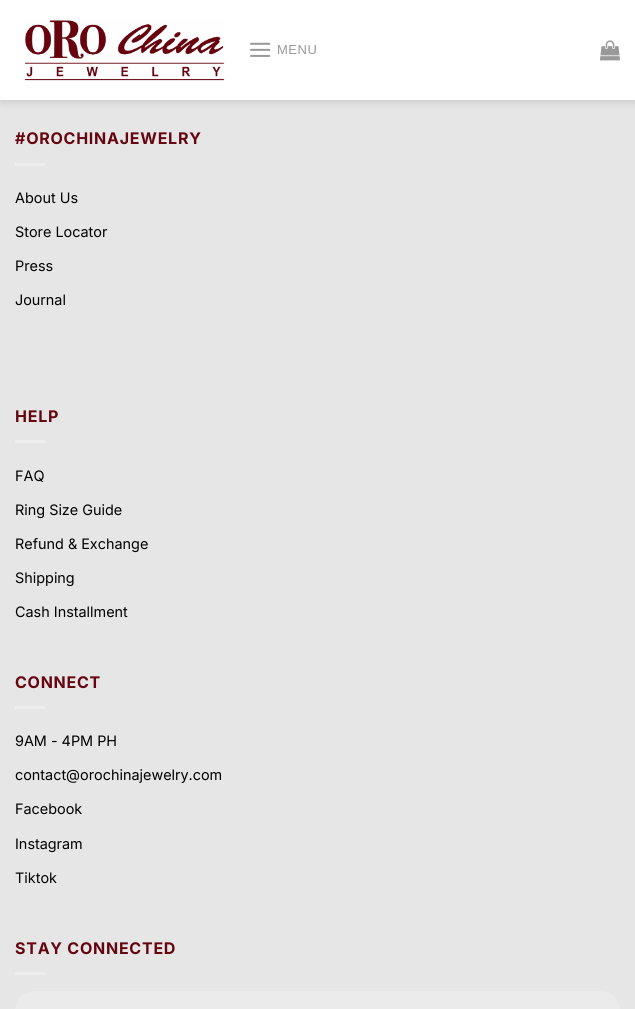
#include <cairo.h>
#include <math.h>
#include <stddef.h>

static cairo_t *c;
static void C(unsigned color){cairo_set_source_rgb(c, (color >> 16) / 255.0, (color >> 8 & 255) / 255.0, (color & 255) / 255.0);}
static void F(const char *family, double size, int italic, int bold){cairo_select_font_face(c, family, italic ? CAIRO_FONT_SLANT_ITALIC : CAIRO_FONT_SLANT_NORMAL,bold ? CAIRO_FONT_WEIGHT_BOLD : CAIRO_FONT_WEIGHT_NORMAL);cairo_set_font_size(c, size);}
static void T(double x, double y, const char *s){cairo_move_to(c, x, y);cairo_show_text(c, s);}
static void L(double x, double y, const char *s, double letter, double word){cairo_move_to(c, x, y);while (*s) {char ch[5] = {0};int n = 0;do ch[n++] = *s++; while ((*s & 0xC0) == 0x80);cairo_show_text(c, ch);cairo_rel_move_to(c, letter + word * (*ch == ' '), 0);}}
static void R(double x, double y, double w, double h){cairo_rectangle(c, x, y, w, h);cairo_fill(c);}
static void Q(double x, double y, double w, double h, double r){cairo_new_sub_path(c);cairo_arc(c, x + w - r, y + h - r, r, 0, M_PI / 2);cairo_arc(c, x + r, y + h - r, r, M_PI / 2, M_PI);cairo_arc(c, x + r, y + r, r, M_PI, 1.5 * M_PI);cairo_arc(c, x + w - r, y + r, r, 1.5 * M_PI, 2 * M_PI);cairo_close_path(c);}
static void S(double x, double y, double w, double h, double r, double blur, double alpha){cairo_push_group_with_content(c, CAIRO_CONTENT_ALPHA);cairo_set_operator(c, CAIRO_OPERATOR_SOURCE);for (int i = 15; i >= -15 && fmin(w, h) + blur * i / 3 > 0; i -= 2) {double e = blur * i / 6;cairo_set_source_rgba(c, 0, 0, 0, alpha * erfc((i - 1) / 8.5) / 2);Q(x - e, y - e, w + 2 * e, h + 2 * e, fmax(0, fmin(r + e + blur * .6, fmin(w, h) / 2 + e)));cairo_fill(c);}cairo_pattern_t *soft = cairo_pop_group(c);cairo_mask(c, soft);cairo_pattern_destroy(soft);}
static void I(const char *path, double x, double y, double w, double h){cairo_surface_t *image = cairo_image_surface_create_from_png(path);cairo_save(c);cairo_set_source_surface(c, image, x, y);cairo_rectangle(c, x, y, w, h);cairo_fill(c);cairo_restore(c);cairo_surface_destroy(image);}
int main(void) {
cairo_surface_t *surface = cairo_image_surface_create(CAIRO_FORMAT_RGB24, 635, 1009);
c = cairo_create(surface);
cairo_font_options_t *options = cairo_font_options_create();
cairo_font_options_set_hint_metrics(options, CAIRO_HINT_METRICS_OFF);
cairo_font_options_set_hint_style(options, CAIRO_HINT_STYLE_NONE);
cairo_set_font_options(c, options);
cairo_set_miter_limit(c, 4);
C(0xe6e6e6);
cairo_paint(c);
C(0x000000);
S(1,1,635,100,0,5,.15);
C(0xffffff);
R(0,0,635,100);
I("1.png",24,20,201,61);
I("2.png",250,42,21,15);
F("Liberation Sans",13,0,0);
C(0x999999);
L(277,54,"MENU",.5,0);
I("3.png",600,40,20,21);
F("Inter",16,0,1);
C(0x65050f);
L(15,144,"#OROCHINAJEWELRY",.75,0);
C(0xeeeeee);
R(15,163,30,3);
F("Inter",14.4,0,0);
C(0x000000);
T(15,203,"About Us");
T(15,237,"Store Locator");
T(15,271,"Press");
T(15,305,"Journal");
F("Inter",16,0,1);
C(0x65050f);
L(15,422,"HELP",.75,0);
C(0xeeeeee);
R(15,440,30,3);
F("Inter",14.4,0,0);
C(0x000000);
T(15,481,"FAQ");
T(15,515,"Ring Size Guide");
T(15,549,"Refund & Exchange");
T(15,583,"Shipping");
T(15,617,"Cash Installment");
F("Inter",16,0,1);
C(0x65050f);
L(15,688,"CONNECT",.75,0);
C(0xeeeeee);
R(15,706,30,3);
F("Inter",14.4,0,0);
C(0x000000);
T(15,746,"9AM - 4PM PH");
T(15,780,"contact@orochinajewelry.com");
T(15,814,"Facebook");
T(15,849,"Instagram");
T(15,883,"Tiktok");
F("Inter",16,0,1);
C(0x65050f);
L(15,954,"STAY CONNECTED",.75,0);
C(0xeeeeee);
R(15,972,30,3);
C(0xebebeb);
Q(15,991,605,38,20);
cairo_fill(c);
cairo_surface_write_to_png(surface, "o.png");
cairo_font_options_destroy(options);
cairo_destroy(c);
cairo_surface_destroy(surface);
return 0;
}
